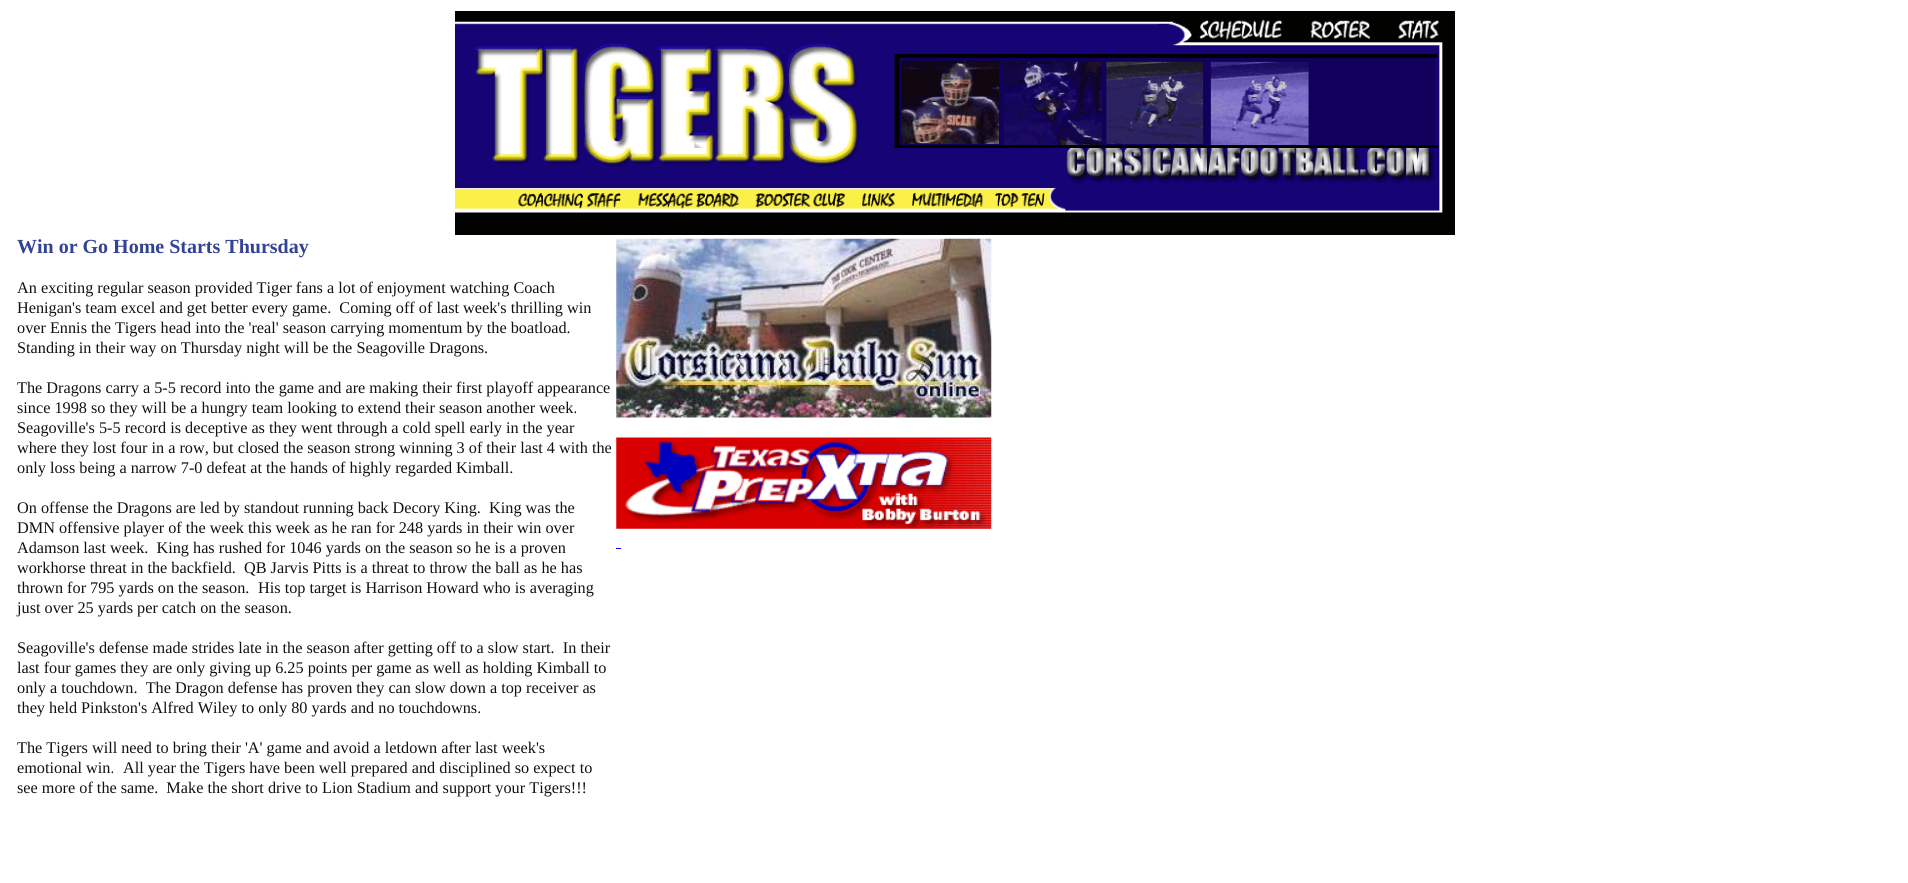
#include <cairo.h>
#include <math.h>
#include <stddef.h>

static cairo_t *c;
static void C(unsigned color){cairo_set_source_rgb(c, (color >> 16) / 255.0, (color >> 8 & 255) / 255.0, (color & 255) / 255.0);}
static void F(const char *family, double size, int italic, int bold){cairo_select_font_face(c, family, italic ? CAIRO_FONT_SLANT_ITALIC : CAIRO_FONT_SLANT_NORMAL,bold ? CAIRO_FONT_WEIGHT_BOLD : CAIRO_FONT_WEIGHT_NORMAL);cairo_set_font_size(c, size);}
static void T(double x, double y, const char *s){cairo_move_to(c, x, y);cairo_show_text(c, s);}
static void R(double x, double y, double w, double h){cairo_rectangle(c, x, y, w, h);cairo_fill(c);}
static void I(const char *path, double x, double y, double w, double h){cairo_surface_t *image = cairo_image_surface_create_from_png(path);cairo_save(c);cairo_set_source_surface(c, image, x, y);cairo_rectangle(c, x, y, w, h);cairo_fill(c);cairo_restore(c);cairo_surface_destroy(image);}
int main(void) {
cairo_surface_t *surface = cairo_image_surface_create(CAIRO_FORMAT_RGB24, 1908, 883);
c = cairo_create(surface);
cairo_font_options_t *options = cairo_font_options_create();
cairo_font_options_set_hint_metrics(options, CAIRO_HINT_METRICS_OFF);
cairo_font_options_set_hint_style(options, CAIRO_HINT_STYLE_NONE);
cairo_set_font_options(c, options);
cairo_set_miter_limit(c, 4);
C(0xffffff);
cairo_paint(c);
I("1.png",455,11,1000,224);
F("Liberation Serif",20,0,1);
C(0x324395);
T(17,253,"Win or Go Home Starts Thursday");
F("Liberation Serif",16.25,0,0);
C(0x111111);
T(17,293,"An exciting regular season provided Tiger fans a lot of enjoyment watching Coach");
T(17,313,"Henigan's team excel and get better every game.  Coming off of last week's thrilling win");
T(17,333,"over Ennis the Tigers head into the 'real' season carrying momentum by the boatload.");
T(17,353,"Standing in their way on Thursday night will be the Seagoville Dragons.");
T(17,393,"The Dragons carry a 5-5 record into the game and are making their first playoff appearance");
T(17,413,"since 1998 so they will be a hungry team looking to extend their season another week.");
T(17,433,"Seagoville's 5-5 record is deceptive as they went through a cold spell early in the year");
T(17,453,"where they lost four in a row, but closed the season strong winning 3 of their last 4 with the");
T(17,473,"only loss being a narrow 7-0 defeat at the hands of highly regarded Kimball.");
T(17,513,"On offense the Dragons are led by standout running back Decory King.  King was the");
T(17,533,"DMN offensive player of the week this week as he ran for 248 yards in their win over");
T(17,553,"Adamson last week.  King has rushed for 1046 yards on the season so he is a proven");
T(17,573,"workhorse threat in the backfield.  QB Jarvis Pitts is a threat to throw the ball as he has");
T(17,593,"thrown for 795 yards on the season.");
T(258,593,"His top target is Harrison Howard who is averaging");
T(17,613,"just over 25 yards per catch on the season.");
T(17,653,"Seagoville's defense made strides late in the season after getting off to a slow start.  In their");
T(17,673,"last four games they are only giving up 6.25 points per game as well as holding Kimball to");
T(17,693,"only a touchdown.  The Dragon defense has proven they can slow down a top receiver as");
T(17,713,"they held Pinkston's Alfred Wiley to only 80 yards and no touchdowns.");
T(17,753,"The Tigers will need to bring their 'A' game and avoid a letdown after last week's");
T(17,773,"emotional win.");
T(123,773,"All year the Tigers have been well prepared and disciplined so expect to");
T(17,793,"see more of the same.  Make the short drive to Lion Stadium and support your Tigers!!!");
I("2.png",616,238,376,180);
I("3.png",616,437,376,92);
C(0x0000ee);
R(616,548,5,1);
cairo_surface_write_to_png(surface, "o.png");
cairo_font_options_destroy(options);
cairo_destroy(c);
cairo_surface_destroy(surface);
return 0;
}
